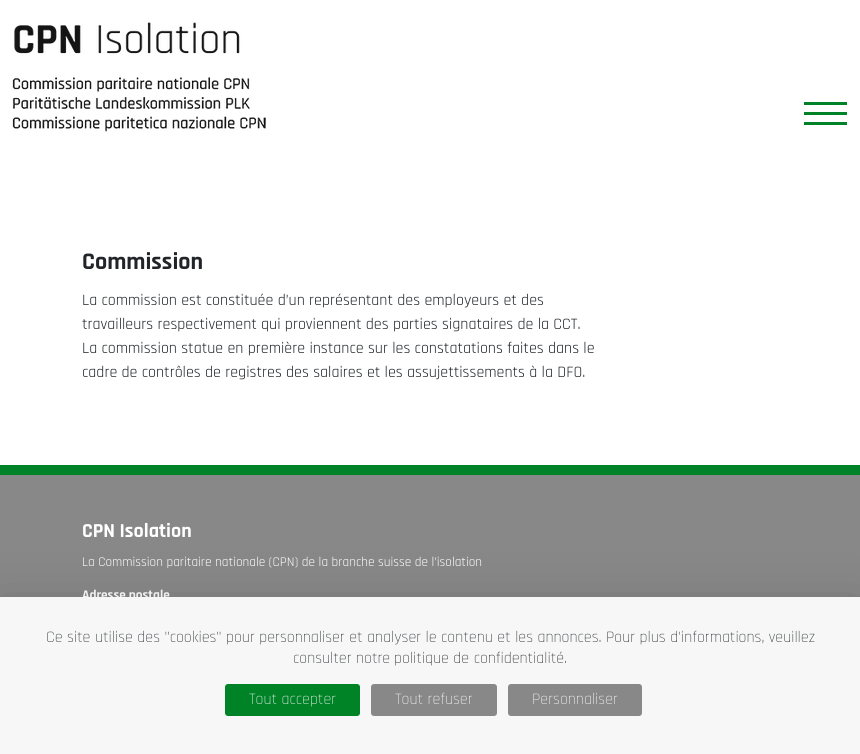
#include <cairo.h>
#include <math.h>
#include <stddef.h>

static cairo_t *c;
static void C(unsigned color){cairo_set_source_rgb(c, (color >> 16) / 255.0, (color >> 8 & 255) / 255.0, (color & 255) / 255.0);}
static void F(const char *family, double size, int italic, int bold){cairo_select_font_face(c, family, italic ? CAIRO_FONT_SLANT_ITALIC : CAIRO_FONT_SLANT_NORMAL,bold ? CAIRO_FONT_WEIGHT_BOLD : CAIRO_FONT_WEIGHT_NORMAL);cairo_set_font_size(c, size);}
static void T(double x, double y, const char *s){cairo_move_to(c, x, y);cairo_show_text(c, s);}
static void R(double x, double y, double w, double h){cairo_rectangle(c, x, y, w, h);cairo_fill(c);}
static void Q(double x, double y, double w, double h, double r){cairo_new_sub_path(c);cairo_arc(c, x + w - r, y + h - r, r, 0, M_PI / 2);cairo_arc(c, x + r, y + h - r, r, M_PI / 2, M_PI);cairo_arc(c, x + r, y + r, r, M_PI, 1.5 * M_PI);cairo_arc(c, x + w - r, y + r, r, 1.5 * M_PI, 2 * M_PI);cairo_close_path(c);}
static void S(double x, double y, double w, double h, double r, double blur, double alpha){cairo_push_group_with_content(c, CAIRO_CONTENT_ALPHA);cairo_set_operator(c, CAIRO_OPERATOR_SOURCE);for (int i = 15; i >= -15 && fmin(w, h) + blur * i / 3 > 0; i -= 2) {double e = blur * i / 6;cairo_set_source_rgba(c, 0, 0, 0, alpha * erfc((i - 1) / 8.5) / 2);Q(x - e, y - e, w + 2 * e, h + 2 * e, fmax(0, fmin(r + e + blur * .6, fmin(w, h) / 2 + e)));cairo_fill(c);}cairo_pattern_t *soft = cairo_pop_group(c);cairo_mask(c, soft);cairo_pattern_destroy(soft);}
static void I(const char *path, double x, double y, double w, double h){cairo_surface_t *image = cairo_image_surface_create_from_png(path);cairo_save(c);cairo_set_source_surface(c, image, x, y);cairo_rectangle(c, x, y, w, h);cairo_fill(c);cairo_restore(c);cairo_surface_destroy(image);}
int main(void) {
cairo_surface_t *surface = cairo_image_surface_create(CAIRO_FORMAT_RGB24, 860, 754);
c = cairo_create(surface);
cairo_font_options_t *options = cairo_font_options_create();
cairo_font_options_set_hint_metrics(options, CAIRO_HINT_METRICS_OFF);
cairo_font_options_set_hint_style(options, CAIRO_HINT_STYLE_NONE);
cairo_set_font_options(c, options);
cairo_set_miter_limit(c, 4);
C(0xffffff);
cairo_paint(c);
I("1.png",12,22,254,110);
C(0x008228);
R(804,112,43,3);
R(804,102,43,3);
R(804,122,43,3);
F("Rajdhani",24,0,1);
C(0x212529);
T(82,269,"Commission");
F("Rajdhani",16,0,0);
T(82,305,"La commission est constituée d’un représentant des employeurs et des");
T(82,329,"travailleurs respectivement qui proviennent des parties signataires de la CCT.");
T(82,353,"La commission statue en première instance sur les constatations faites dans le");
T(82,377,"cadre de contrôles de registres des salaires et les assujettissements à la DFO.");
C(0x888888);
R(0,475,860,122);
C(0x008228);
R(0,465,860,10);
F("Rajdhani",20,0,1);
C(0xffffff);
T(82,537,"CPN Isolation");
F("Rajdhani",13.3,0,0);
T(82,566,"La Commission paritaire nationale (CPN) de la branche suisse de l’isolation");
F("Rajdhani",13.3,0,1);
T(82,599,"Adresse postale");
C(0x000000);
S(0,617,860,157,0,30,.25);
C(0xf7f7f7);
R(0,597,860,157);
F("Rajdhani Light",16,0,0);
C(0x212529);
T(46,642,"Ce site utilise des \"cookies\" pour personnaliser et analyser le contenu et les annonces. Pour plus d'informations, veuillez");
T(293,663,"consulter notre");
C(0x232323);
T(394,663,"politique de confidentialité");
C(0x212529);
T(564,663,".");
C(0x008227);
Q(225,684,135,32,3);
cairo_fill(c);
C(0xffffff);
T(249,704,"Tout accepter");
C(0x888888);
Q(371,684,126,32,3);
cairo_fill(c);
C(0xffffff);
T(395,704,"Tout refuser");
C(0x888888);
Q(508,684,134,32,3);
cairo_fill(c);
C(0xffffff);
T(532,704,"Personnaliser");
cairo_surface_write_to_png(surface, "o.png");
cairo_font_options_destroy(options);
cairo_destroy(c);
cairo_surface_destroy(surface);
return 0;
}
